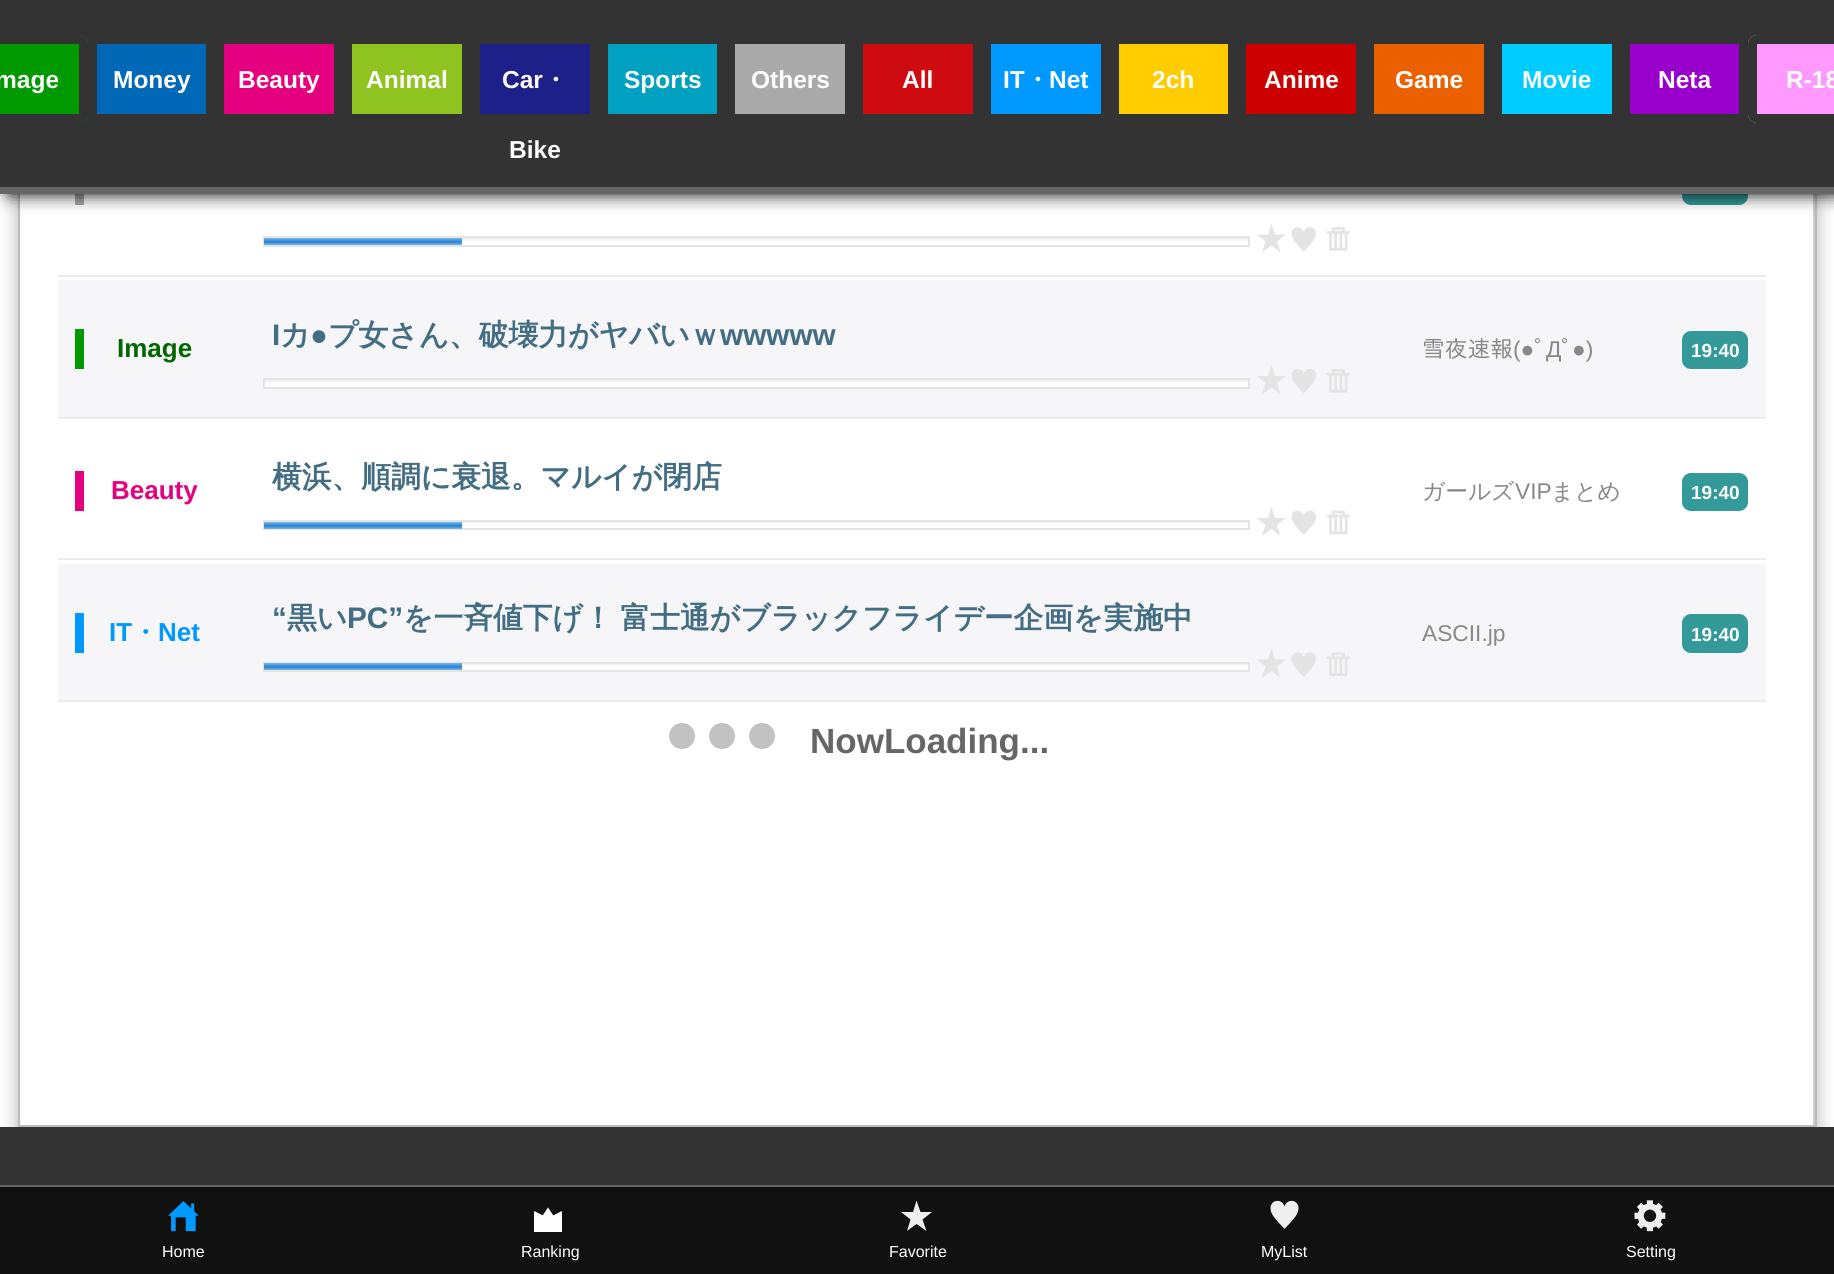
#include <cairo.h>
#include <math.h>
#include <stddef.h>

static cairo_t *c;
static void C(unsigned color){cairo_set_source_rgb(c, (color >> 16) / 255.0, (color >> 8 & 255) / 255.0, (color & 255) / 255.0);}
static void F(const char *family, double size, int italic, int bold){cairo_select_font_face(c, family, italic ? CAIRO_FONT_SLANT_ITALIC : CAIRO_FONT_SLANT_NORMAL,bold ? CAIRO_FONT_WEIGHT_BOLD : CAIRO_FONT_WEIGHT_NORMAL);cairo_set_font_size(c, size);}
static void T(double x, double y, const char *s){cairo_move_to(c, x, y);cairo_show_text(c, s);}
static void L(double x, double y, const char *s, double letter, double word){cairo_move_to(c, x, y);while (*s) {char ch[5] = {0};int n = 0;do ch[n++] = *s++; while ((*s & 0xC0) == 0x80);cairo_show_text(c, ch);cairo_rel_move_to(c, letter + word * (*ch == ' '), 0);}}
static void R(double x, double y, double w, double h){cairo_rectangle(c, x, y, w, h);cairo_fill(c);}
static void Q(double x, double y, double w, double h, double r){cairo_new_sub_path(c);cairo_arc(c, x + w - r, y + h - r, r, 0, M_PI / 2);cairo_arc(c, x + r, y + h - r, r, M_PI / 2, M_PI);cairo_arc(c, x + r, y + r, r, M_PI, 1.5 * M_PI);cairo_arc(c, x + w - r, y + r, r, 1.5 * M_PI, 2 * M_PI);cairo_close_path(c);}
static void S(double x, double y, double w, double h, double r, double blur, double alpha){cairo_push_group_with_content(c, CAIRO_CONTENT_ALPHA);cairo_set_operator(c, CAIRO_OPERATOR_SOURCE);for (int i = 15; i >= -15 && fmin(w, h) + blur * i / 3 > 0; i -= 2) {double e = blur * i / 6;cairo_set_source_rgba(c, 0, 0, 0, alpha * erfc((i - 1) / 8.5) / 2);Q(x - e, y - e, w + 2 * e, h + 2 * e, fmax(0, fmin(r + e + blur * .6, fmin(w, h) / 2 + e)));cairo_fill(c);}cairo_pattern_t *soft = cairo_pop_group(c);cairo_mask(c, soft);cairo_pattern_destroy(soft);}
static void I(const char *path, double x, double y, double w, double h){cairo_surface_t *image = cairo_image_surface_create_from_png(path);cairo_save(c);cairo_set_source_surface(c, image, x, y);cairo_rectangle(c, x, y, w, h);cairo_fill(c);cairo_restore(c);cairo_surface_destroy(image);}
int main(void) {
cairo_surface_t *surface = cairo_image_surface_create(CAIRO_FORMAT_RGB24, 1834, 1274);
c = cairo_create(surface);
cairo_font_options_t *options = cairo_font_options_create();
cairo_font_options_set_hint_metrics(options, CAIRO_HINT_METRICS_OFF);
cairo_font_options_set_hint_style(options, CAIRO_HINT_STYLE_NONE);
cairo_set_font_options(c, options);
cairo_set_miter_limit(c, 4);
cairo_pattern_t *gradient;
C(0xffffff);
cairo_paint(c);
C(0x000000);
S(18,-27,1799,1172,0,9,.3);
C(0xffffff);
R(20,194,1793,931);
cairo_rectangle(c,19,-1,1797,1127);
C(0xbbbbbb);
cairo_stroke(c);
C(0xcccccc);
R(1814,194,1,931);
C(0xaaaaaa);
R(75,194,9,11);
C(0x339999);
Q(1682,166,66,39,9);
cairo_fill(c);
C(0x000000);
S(9,0,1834,194,0,9,1);
C(0x333333);
R(0,0,1834,187);
C(0x666666);
R(0,187,1834,7);
C(0x009900);
cairo_new_path(c);
cairo_move_to(c,0,35);
cairo_line_to(c,79,35);
cairo_curve_to(c,84,35,88,39,88,44);
cairo_line_to(c,88,114);
cairo_curve_to(c,88,119,84,123,79,123);
cairo_line_to(c,0,123);
cairo_close_path(c);
cairo_fill(c);
Q(-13.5,39.5,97,79,4.5);
C(0x333333);
cairo_set_line_width(c,9);
cairo_stroke(c);
F("Liberation Sans",24.5,0,1);
C(0xffffff);
T(-5,88,"mage");
C(0x0068b7);
Q(92.5,39.5,118,79,4.5);
cairo_fill_preserve(c);
C(0x333333);
cairo_stroke(c);
C(0xffffff);
T(113,88,"Money");
C(0xe4007f);
Q(219.5,39.5,119,79,4.5);
cairo_fill_preserve(c);
C(0x333333);
cairo_stroke(c);
C(0xffffff);
T(238,88,"Beauty");
C(0x8fc31f);
Q(347.5,39.5,119,79,4.5);
cairo_fill_preserve(c);
C(0x333333);
cairo_stroke(c);
C(0xffffff);
T(366,88,"Animal");
C(0x1d2088);
Q(475.5,39.5,119,79,4.5);
cairo_fill_preserve(c);
C(0x333333);
cairo_stroke(c);
C(0xffffff);
T(502,88,"Car");
F("WenQuanYi Zen Hei",24.5,0,1);
T(543,88,"・");
F("Liberation Sans",24.5,0,1);
T(509,158,"Bike");
C(0x00a0c1);
Q(603.5,39.5,118,79,4.5);
cairo_fill_preserve(c);
C(0x333333);
cairo_stroke(c);
C(0xffffff);
T(624,88,"Sports");
C(0xaaaaaa);
Q(730.5,39.5,119,79,4.5);
cairo_fill_preserve(c);
C(0x333333);
cairo_stroke(c);
C(0xffffff);
T(751,88,"Others");
C(0xce0b10);
Q(858.5,39.5,119,79,4.5);
cairo_fill_preserve(c);
C(0x333333);
cairo_stroke(c);
C(0xffffff);
T(902,88,"All");
C(0x0099ff);
Q(986.5,39.5,119,79,4.5);
cairo_fill_preserve(c);
C(0x333333);
cairo_stroke(c);
C(0xffffff);
T(1003,88,"IT");
F("WenQuanYi Zen Hei",24.5,0,1);
T(1025,88,"・");
F("Liberation Sans",24.5,0,1);
T(1049,88,"Net");
C(0xffcc00);
Q(1114.5,39.5,118,79,4.5);
cairo_fill_preserve(c);
C(0x333333);
cairo_stroke(c);
C(0xffffff);
T(1152,88,"2ch");
C(0xcc0000);
Q(1241.5,39.5,119,79,4.5);
cairo_fill_preserve(c);
C(0x333333);
cairo_stroke(c);
C(0xffffff);
T(1264,88,"Anime");
C(0xeb6100);
Q(1369.5,39.5,119,79,4.5);
cairo_fill_preserve(c);
C(0x333333);
cairo_stroke(c);
C(0xffffff);
T(1395,88,"Game");
C(0x00ccff);
Q(1497.5,39.5,119,79,4.5);
cairo_fill_preserve(c);
C(0x333333);
cairo_stroke(c);
C(0xffffff);
T(1522,88,"Movie");
C(0x9900cc);
Q(1625.5,39.5,118,79,4.5);
cairo_fill_preserve(c);
C(0x333333);
cairo_stroke(c);
C(0xffffff);
T(1658,88,"Neta");
C(0xff99ff);
cairo_new_path(c);
cairo_move_to(c,1757,35);
cairo_line_to(c,1834,35);
cairo_line_to(c,1834,123);
cairo_line_to(c,1757,123);
cairo_curve_to(c,1752,123,1748,119,1748,114);
cairo_line_to(c,1748,44);
cairo_curve_to(c,1748,39,1752,35,1757,35);
cairo_close_path(c);
cairo_fill(c);
Q(1752.5,39.5,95,79,4.5);
C(0x333333);
cairo_stroke(c);
C(0xffffff);
T(1786,88,"R-18");
C(0xebebec);
R(58,275,1708,2);
gradient = cairo_pattern_create_linear(756,238,756,245);
cairo_pattern_add_color_stop_rgba(gradient,0,0.933,0.933,0.933,1);
cairo_pattern_add_color_stop_rgba(gradient,.5,1,1,1,1);
cairo_pattern_add_color_stop_rgba(gradient,1,1,1,1,1);
cairo_set_source(c,gradient);
cairo_pattern_destroy(gradient);
R(462,238,788,3);
cairo_rectangle(c,264,237,985,9);
C(0xe4e4e4);
cairo_set_line_width(c,2);
cairo_stroke(c);
gradient = cairo_pattern_create_linear(363,238,363,245);
cairo_pattern_add_color_stop_rgba(gradient,0,0.49,0.725,0.91,1);
cairo_pattern_add_color_stop_rgba(gradient,.5,0.169,0.533,0.851,1);
cairo_pattern_add_color_stop_rgba(gradient,.51,0.125,0.486,0.792,1);
cairo_pattern_add_color_stop_rgba(gradient,1,0.49,0.725,0.91,1);
cairo_set_source(c,gradient);
cairo_pattern_destroy(gradient);
R(264,238,198,7);
C(0xe4e4e4);
cairo_new_path(c);
cairo_move_to(c,1275,234.5);
cairo_line_to(c,1286,234.5);
cairo_line_to(c,1277,241.5);
cairo_line_to(c,1280.5,252.5);
cairo_line_to(c,1271.5,245.5);
cairo_line_to(c,1262,252.5);
cairo_line_to(c,1265.5,241.5);
cairo_line_to(c,1256.5,234.5);
cairo_line_to(c,1268,234.5);
cairo_line_to(c,1271.5,223);
cairo_close_path(c);
cairo_fill(c);
I("1.png",1291,227,25,25);
I("2.png",1326,227,24,24);
C(0xf6f6f9);
R(58,280,1708,137);
C(0xebebec);
R(58,417,1708,2);
C(0x009900);
R(75,329,9,40);
F("Liberation Sans",26,0,1);
C(0x006600);
T(117,357,"Image");
F("Liberation Sans",29.75,0,1);
C(0x436d83);
T(272,345,"I");
F("WenQuanYi Zen Hei",29.75,0,1);
T(280,345,"カ");
F("Liberation Sans",29.75,0,1);
T(310,345,"●");
F("WenQuanYi Zen Hei",29.75,0,1);
T(328,345,"プ女さん、破壊力がヤバいｗ");
F("Liberation Sans",29.75,0,1);
T(720,345,"wwwww");
gradient = cairo_pattern_create_linear(756,380,756,387);
cairo_pattern_add_color_stop_rgba(gradient,0,0.933,0.933,0.933,1);
cairo_pattern_add_color_stop_rgba(gradient,.5,1,1,1,1);
cairo_pattern_add_color_stop_rgba(gradient,1,1,1,1,1);
cairo_set_source(c,gradient);
cairo_pattern_destroy(gradient);
R(263,380,987,7);
cairo_rectangle(c,264,379,985,9);
C(0xe4e4e4);
cairo_stroke(c);
cairo_new_path(c);
cairo_move_to(c,1275,376);
cairo_line_to(c,1286,376);
cairo_line_to(c,1277,383);
cairo_line_to(c,1280.5,394.5);
cairo_line_to(c,1271.5,387.5);
cairo_line_to(c,1262,394.5);
cairo_line_to(c,1265.5,383);
cairo_line_to(c,1256.5,376);
cairo_line_to(c,1268,376);
cairo_line_to(c,1271.5,364.5);
cairo_close_path(c);
cairo_fill(c);
I("3.png",1291,369,25,24);
I("4.png",1326,369,24,24);
F("IPAGothic",22.75,0,0);
C(0x888888);
T(1422,357,"雪夜速報");
F("Liberation Sans",22.75,0,0);
T(1513,357,"(●");
F("IPAGothic",22.75,0,0);
T(1534,357,"ﾟ");
F("Liberation Sans",22.75,0,0);
T(1546,357,"Д");
F("IPAGothic",22.75,0,0);
T(1561,357,"ﾟ");
F("Liberation Sans",22.75,0,0);
T(1572,357,"●)");
C(0x339999);
Q(1682,331,66,38,9);
cairo_fill(c);
F("Liberation Sans",19,0,1);
C(0xffffff);
T(1691,357,"19:40");
C(0xebebec);
R(58,558,1708,2);
C(0xe4007f);
R(75,471,9,40);
F("Liberation Sans",26,0,1);
T(111,499,"Beauty");
F("WenQuanYi Zen Hei",29.75,0,1);
C(0x436d83);
T(272,487,"横浜、順調に衰退。マルイが閉店");
gradient = cairo_pattern_create_linear(756,521,756,529);
cairo_pattern_add_color_stop_rgba(gradient,0,0.933,0.933,0.933,1);
cairo_pattern_add_color_stop_rgba(gradient,.5,1,1,1,1);
cairo_pattern_add_color_stop_rgba(gradient,1,1,1,1,1);
cairo_set_source(c,gradient);
cairo_pattern_destroy(gradient);
R(462,522,788,2);
cairo_rectangle(c,264,521,985,8);
C(0xe4e4e4);
cairo_stroke(c);
gradient = cairo_pattern_create_linear(363,522,363,529);
cairo_pattern_add_color_stop_rgba(gradient,0,0.49,0.725,0.91,1);
cairo_pattern_add_color_stop_rgba(gradient,.5,0.169,0.533,0.851,1);
cairo_pattern_add_color_stop_rgba(gradient,.51,0.125,0.486,0.792,1);
cairo_pattern_add_color_stop_rgba(gradient,1,0.49,0.725,0.91,1);
cairo_set_source(c,gradient);
cairo_pattern_destroy(gradient);
R(264,522,198,7);
C(0xe4e4e4);
cairo_new_path(c);
cairo_move_to(c,1275,518);
cairo_line_to(c,1286,518);
cairo_line_to(c,1277,525);
cairo_line_to(c,1280.5,536);
cairo_line_to(c,1271.5,529);
cairo_line_to(c,1262,536);
cairo_line_to(c,1265.5,525);
cairo_line_to(c,1256.5,518);
cairo_line_to(c,1268,518);
cairo_line_to(c,1271.5,506.5);
cairo_close_path(c);
cairo_fill(c);
I("5.png",1291,510,25,25);
I("6.png",1326,510,24,25);
F("WenQuanYi Zen Hei Medium",22.75,0,0);
C(0x888888);
T(1422,499,"ガールズ");
F("Liberation Sans",22.75,0,0);
T(1515,499,"VIP");
F("WenQuanYi Zen Hei Medium",22.75,0,0);
T(1551,499,"まとめ");
C(0x339999);
Q(1682,473,66,38,9);
cairo_fill(c);
F("Liberation Sans",19,0,1);
C(0xffffff);
T(1691,499,"19:40");
C(0xf6f6f9);
R(58,564,1708,136);
C(0xebebec);
R(58,700,1708,2);
C(0x0099ff);
R(75,613,9,40);
F("Liberation Sans",26,0,1);
T(109,641,"IT");
F("WenQuanYi Zen Hei",26,0,1);
T(132,641,"・");
F("Liberation Sans",26,0,1);
T(158,641,"Net");
F("Liberation Sans",29.75,0,1);
C(0x436d83);
T(272,628,"“");
F("WenQuanYi Zen Hei",29.75,0,1);
T(287,628,"黒い");
F("Liberation Sans",29.75,0,1);
T(347,628,"PC”");
F("WenQuanYi Zen Hei",29.75,0,1);
L(403,628,"を一斉値下げ！ 富士通がブラックフライデー企画を実施中",0,-1);
gradient = cairo_pattern_create_linear(756,663,756,670);
cairo_pattern_add_color_stop_rgba(gradient,0,0.933,0.933,0.933,1);
cairo_pattern_add_color_stop_rgba(gradient,.5,1,1,1,1);
cairo_pattern_add_color_stop_rgba(gradient,1,1,1,1,1);
cairo_set_source(c,gradient);
cairo_pattern_destroy(gradient);
R(462,664,788,6);
cairo_rectangle(c,264,663,985,8);
C(0xe4e4e4);
cairo_stroke(c);
gradient = cairo_pattern_create_linear(363,663,363,670);
cairo_pattern_add_color_stop_rgba(gradient,0,0.49,0.725,0.91,1);
cairo_pattern_add_color_stop_rgba(gradient,.5,0.169,0.533,0.851,1);
cairo_pattern_add_color_stop_rgba(gradient,.51,0.125,0.486,0.792,1);
cairo_pattern_add_color_stop_rgba(gradient,1,0.49,0.725,0.91,1);
cairo_set_source(c,gradient);
cairo_pattern_destroy(gradient);
R(264,663,198,7);
C(0xe4e4e4);
cairo_new_path(c);
cairo_move_to(c,1275,659.5);
cairo_line_to(c,1286,659.5);
cairo_line_to(c,1277,666.5);
cairo_line_to(c,1280.5,678);
cairo_line_to(c,1271.5,671);
cairo_line_to(c,1262,678);
cairo_line_to(c,1265.5,666.5);
cairo_line_to(c,1256.5,659.5);
cairo_line_to(c,1268,659.5);
cairo_line_to(c,1271.5,648);
cairo_close_path(c);
cairo_fill(c);
I("7.png",1291,652,25,25);
I("8.png",1326,652,24,24);
F("Liberation Sans",22.75,0,0);
C(0x888888);
T(1422,641,"ASCII.jp");
C(0x339999);
Q(1682,614,66,39,9);
cairo_fill(c);
F("Liberation Sans",19,0,1);
C(0xffffff);
T(1691,641,"19:40");
C(0xc2c2c2);
cairo_new_path(c);
cairo_arc(c,682,736,13,0,2 * M_PI);
cairo_fill(c);
cairo_arc(c,722,736,13,0,2 * M_PI);
cairo_fill(c);
cairo_arc(c,762,736,13,0,2 * M_PI);
cairo_fill(c);
F("Liberation Sans",35,0,1);
C(0x666666);
T(810,753,"NowLoading...");
C(0x333333);
R(0,1127,1834,58);
C(0x666666);
R(0,1185,1834,2);
C(0x111111);
R(0,1187,1834,87);
I("9.png",168,1201,31,31);
F("Liberation Sans",16,0,0);
C(0xffffff);
T(162,1257,"Home");
cairo_new_path(c);
cairo_move_to(c,562,1228.5);
cairo_line_to(c,534,1228.5);
cairo_line_to(c,548,1207.5);
cairo_close_path(c);
cairo_fill(c);
cairo_new_path(c);
cairo_move_to(c,562,1211);
cairo_line_to(c,562,1232);
cairo_line_to(c,548,1218);
cairo_close_path(c);
cairo_fill(c);
R(534,1218,28,14);
cairo_new_path(c);
cairo_move_to(c,534,1232);
cairo_line_to(c,534,1211);
cairo_line_to(c,548,1218);
cairo_close_path(c);
cairo_fill(c);
T(521,1257,"Ranking");
C(0xeeeeee);
cairo_new_path(c);
cairo_move_to(c,920.5,1212);
cairo_line_to(c,932,1212);
cairo_line_to(c,922.5,1219.5);
cairo_line_to(c,926.5,1231);
cairo_line_to(c,916.5,1224);
cairo_line_to(c,907,1231);
cairo_line_to(c,910.5,1219.5);
cairo_line_to(c,901,1212);
cairo_line_to(c,913,1212);
cairo_line_to(c,916.5,1200.5);
cairo_close_path(c);
cairo_fill(c);
C(0xffffff);
T(889,1257,"Favorite");
I("10.png",1270,1200,29,29);
T(1261,1257,"MyList");
I("11.png",1634,1200,32,32);
T(1626,1257,"Setting");
cairo_surface_write_to_png(surface, "o.png");
cairo_font_options_destroy(options);
cairo_destroy(c);
cairo_surface_destroy(surface);
return 0;
}
